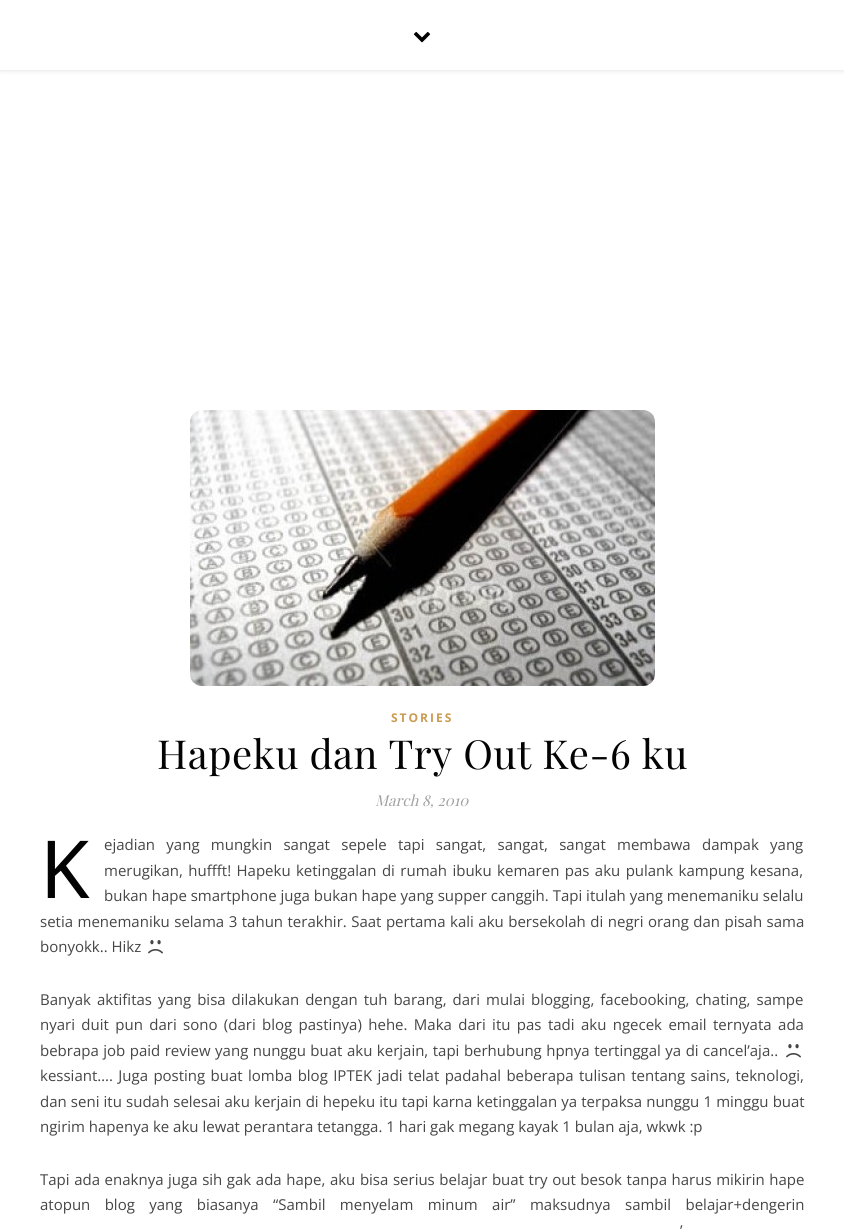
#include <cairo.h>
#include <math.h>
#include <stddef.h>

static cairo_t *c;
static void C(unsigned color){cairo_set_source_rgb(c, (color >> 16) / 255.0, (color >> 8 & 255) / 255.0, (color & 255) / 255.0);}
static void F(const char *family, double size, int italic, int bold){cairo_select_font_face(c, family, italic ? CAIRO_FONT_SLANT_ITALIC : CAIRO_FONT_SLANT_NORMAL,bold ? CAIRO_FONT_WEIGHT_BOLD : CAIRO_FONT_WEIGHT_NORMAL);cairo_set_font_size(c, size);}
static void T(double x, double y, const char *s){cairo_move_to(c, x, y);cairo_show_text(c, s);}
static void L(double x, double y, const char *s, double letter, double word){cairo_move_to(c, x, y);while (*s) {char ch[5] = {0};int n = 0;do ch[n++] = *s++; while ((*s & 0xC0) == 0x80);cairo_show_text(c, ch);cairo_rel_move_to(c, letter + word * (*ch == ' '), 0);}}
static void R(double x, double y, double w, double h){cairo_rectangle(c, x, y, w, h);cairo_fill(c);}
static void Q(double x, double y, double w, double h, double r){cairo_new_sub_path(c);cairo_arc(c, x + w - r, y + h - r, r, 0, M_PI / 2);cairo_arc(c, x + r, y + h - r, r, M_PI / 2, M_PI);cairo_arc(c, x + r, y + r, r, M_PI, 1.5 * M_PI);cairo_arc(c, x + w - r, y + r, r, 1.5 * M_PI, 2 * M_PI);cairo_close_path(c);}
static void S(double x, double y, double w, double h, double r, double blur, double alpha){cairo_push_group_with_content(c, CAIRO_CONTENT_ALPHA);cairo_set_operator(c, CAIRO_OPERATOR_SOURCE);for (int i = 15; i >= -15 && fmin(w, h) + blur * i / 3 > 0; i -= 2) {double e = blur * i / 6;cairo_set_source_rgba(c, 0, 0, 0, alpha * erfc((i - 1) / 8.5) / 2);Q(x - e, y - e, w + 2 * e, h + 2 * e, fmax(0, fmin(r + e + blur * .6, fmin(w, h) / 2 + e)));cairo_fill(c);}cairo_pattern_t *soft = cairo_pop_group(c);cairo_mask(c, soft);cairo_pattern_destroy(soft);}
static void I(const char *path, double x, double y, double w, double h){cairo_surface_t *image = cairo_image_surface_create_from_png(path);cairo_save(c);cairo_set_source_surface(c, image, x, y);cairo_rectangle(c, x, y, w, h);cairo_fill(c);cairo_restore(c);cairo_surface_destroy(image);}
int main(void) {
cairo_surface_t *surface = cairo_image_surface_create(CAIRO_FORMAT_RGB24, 844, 1229);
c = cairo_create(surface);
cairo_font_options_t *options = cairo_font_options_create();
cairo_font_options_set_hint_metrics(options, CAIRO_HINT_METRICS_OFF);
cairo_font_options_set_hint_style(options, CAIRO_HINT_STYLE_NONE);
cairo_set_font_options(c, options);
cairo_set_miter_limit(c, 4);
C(0xffffff);
cairo_paint(c);
C(0x000000);
S(0,1,844,70,0,2.5,.1);
C(0xffffff);
R(0,0,844,70);
I("1.png",413,32,18,11);
I("2.png",190,410,465,276);
F("Open Sans",12,0,1);
C(0xca9b52);
L(391,722,"STORIES",2,0);
F("Playfair Display",40,0,0);
C(0x030303);
L(157,769,"Hapeku dan Try Out Ke-6 ku",.5,0);
F("Playfair Display",15,1,0);
C(0xa1a1a1);
T(375,806,"March 8, 2010");
F("Noto Sans",80,0,0);
C(0x030303);
T(40,898,"K");
F("Open Sans",15,0,0);
C(0x464646);
L(104,850,"ejadian yang mungkin sangat sepele tapi sangat, sangat, sangat membawa dampak yang",0,7.4);
L(104,876,"merugikan, huffft! Hapeku ketinggalan di rumah ibuku kemaren pas aku pulank kampung kesana,",0,1.5);
T(104,901,"bukan hape smartphone juga bukan hape yang supper canggih. Tapi itulah yang menemaniku selalu");
L(40,927,"setia menemaniku selama 3 tahun terakhir. Saat pertama kali aku bersekolah di negri orang dan pisah sama",0,.6);
T(40,952,"bonyokk.. Hikz");
I("3.png",148,940,15,14);
L(40,1005,"Banyak aktifitas yang bisa dilakukan dengan tuh barang, dari mulai blogging, facebooking, chating, sampe",0,2.1);
L(40,1030,"nyari duit pun dari sono (dari blog pastinya) hehe. Maka dari itu pas tadi aku ngecek email ternyata ada",0,2.5);
L(40,1056,"bebrapa job paid review yang nunggu buat aku kerjain, tapi berhubung hpnya tertinggal ya di cancel’aja..",0,.6);
I("3.png",786,1044,15,14);
L(40,1081,"kessiant…. Juga posting buat lomba blog IPTEK jadi telat padahal beberapa tulisan tentang sains, teknologi,",0,1.5);
L(40,1107,"dan seni itu sudah selesai aku kerjain di hepeku itu tapi karna ketinggalan ya terpaksa nunggu 1 minggu buat",0,.25);
T(40,1132,"ngirim hapenya ke aku lewat perantara tetangga. 1 hari gak megang kayak 1 bulan aja, wkwk :p");
L(40,1185,"Tapi ada enaknya juga sih gak ada hape, aku bisa serius belajar buat try out besok tanpa harus mikirin hape",0,.7);
L(40,1210,"atopun blog yang biasanya “Sambil menyelam minum air” maksudnya sambil belajar+dengerin",0,10.5);
L(680,1236,"’",0,1);
cairo_surface_write_to_png(surface, "o.png");
cairo_font_options_destroy(options);
cairo_destroy(c);
cairo_surface_destroy(surface);
return 0;
}
